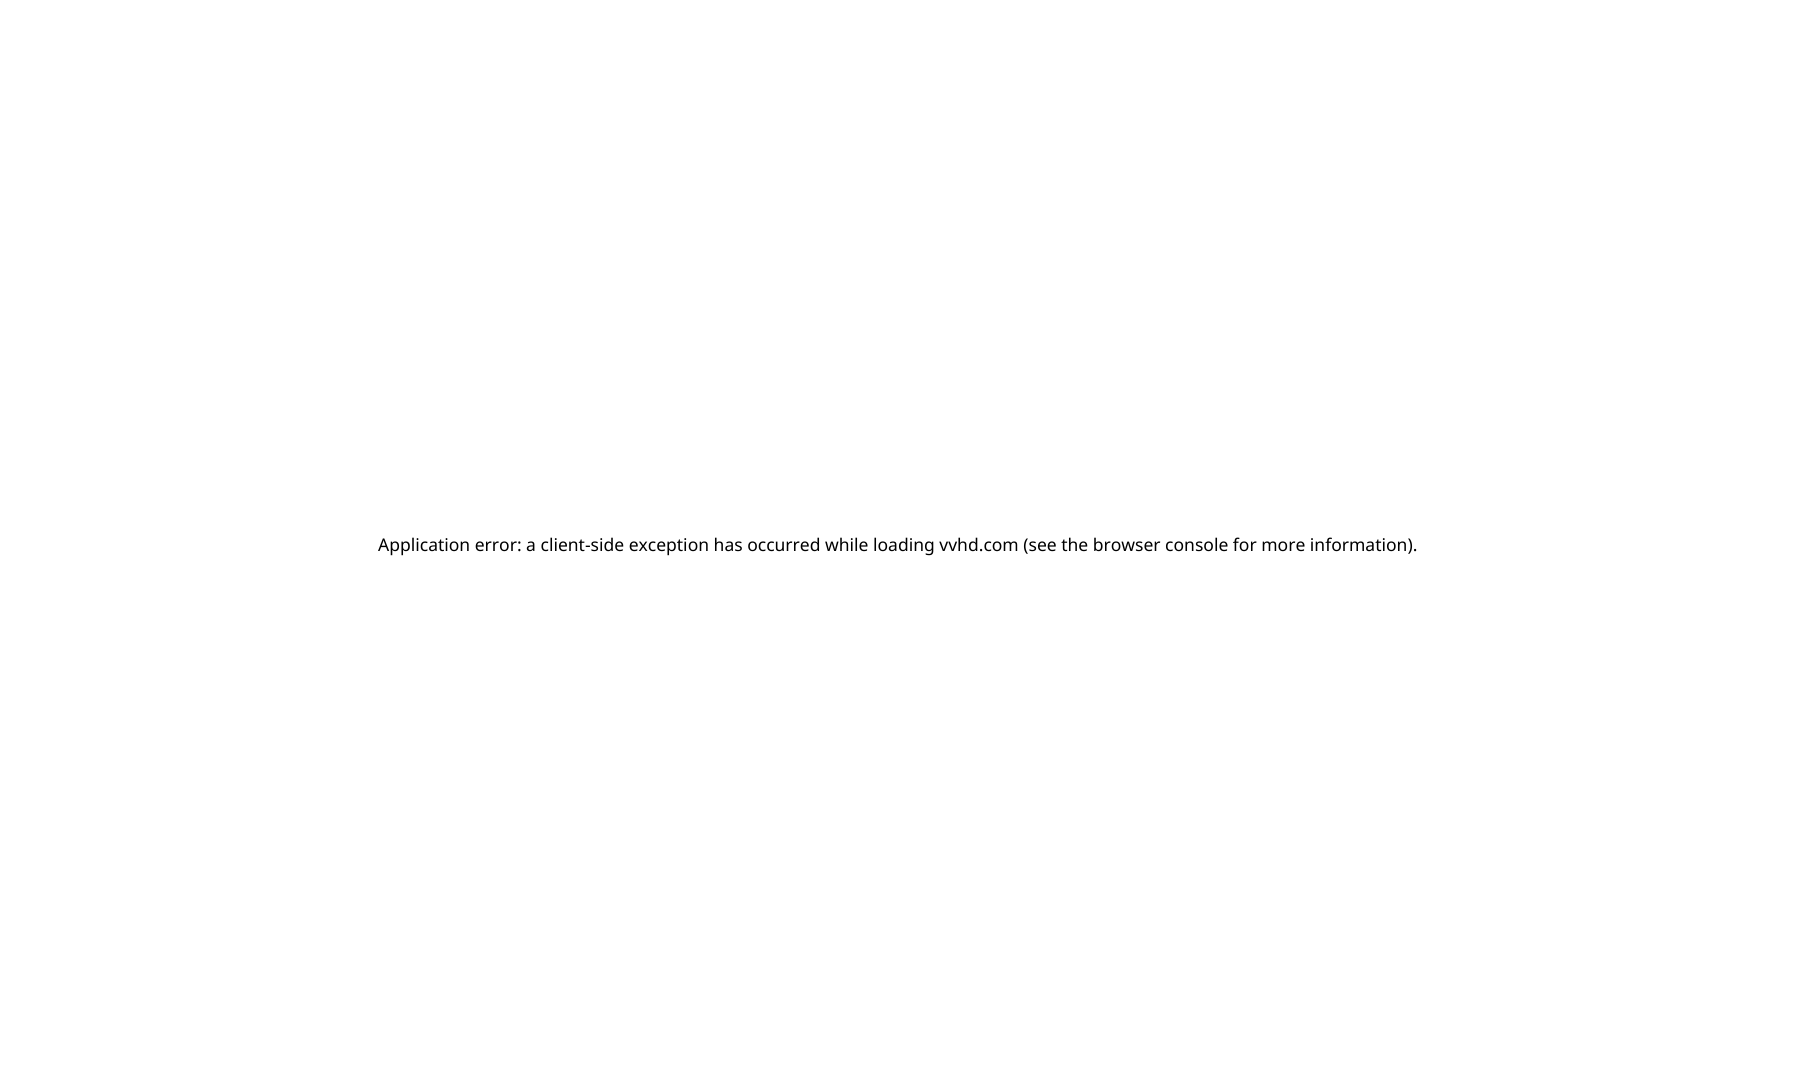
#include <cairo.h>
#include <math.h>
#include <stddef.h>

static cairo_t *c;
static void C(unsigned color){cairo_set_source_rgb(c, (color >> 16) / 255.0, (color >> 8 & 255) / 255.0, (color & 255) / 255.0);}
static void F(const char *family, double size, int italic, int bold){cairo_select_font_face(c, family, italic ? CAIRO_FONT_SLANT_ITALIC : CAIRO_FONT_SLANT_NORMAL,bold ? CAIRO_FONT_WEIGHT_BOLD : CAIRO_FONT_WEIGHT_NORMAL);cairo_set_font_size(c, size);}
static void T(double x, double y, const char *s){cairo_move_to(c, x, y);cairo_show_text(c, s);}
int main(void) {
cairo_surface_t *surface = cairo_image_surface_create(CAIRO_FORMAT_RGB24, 1795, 1089);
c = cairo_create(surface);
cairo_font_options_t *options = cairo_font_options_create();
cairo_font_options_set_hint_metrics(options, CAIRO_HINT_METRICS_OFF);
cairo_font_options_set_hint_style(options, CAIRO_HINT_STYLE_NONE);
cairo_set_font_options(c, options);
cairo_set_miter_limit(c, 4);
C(0xffffff);
cairo_paint(c);
F("Noto Sans",17.5,0,0);
C(0x000000);
T(378,551,"Application error: a client-side exception has occurred while loading vvhd.com (see the browser console for more information).");
cairo_surface_write_to_png(surface, "o.png");
cairo_font_options_destroy(options);
cairo_destroy(c);
cairo_surface_destroy(surface);
return 0;
}
